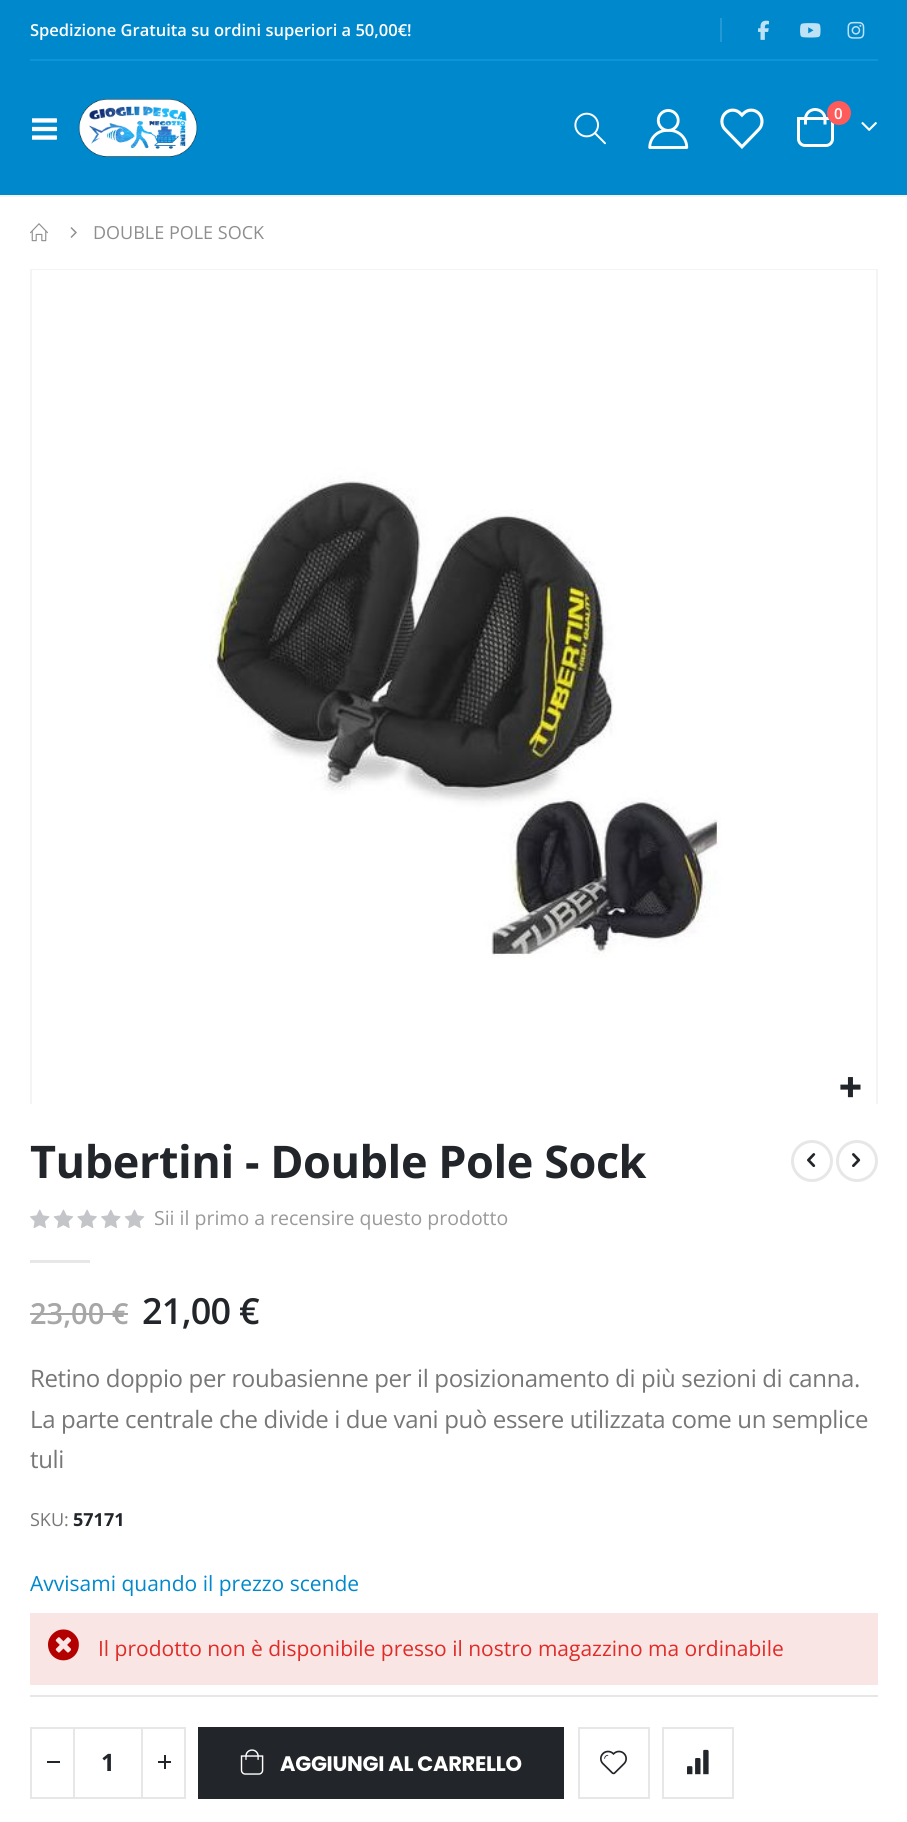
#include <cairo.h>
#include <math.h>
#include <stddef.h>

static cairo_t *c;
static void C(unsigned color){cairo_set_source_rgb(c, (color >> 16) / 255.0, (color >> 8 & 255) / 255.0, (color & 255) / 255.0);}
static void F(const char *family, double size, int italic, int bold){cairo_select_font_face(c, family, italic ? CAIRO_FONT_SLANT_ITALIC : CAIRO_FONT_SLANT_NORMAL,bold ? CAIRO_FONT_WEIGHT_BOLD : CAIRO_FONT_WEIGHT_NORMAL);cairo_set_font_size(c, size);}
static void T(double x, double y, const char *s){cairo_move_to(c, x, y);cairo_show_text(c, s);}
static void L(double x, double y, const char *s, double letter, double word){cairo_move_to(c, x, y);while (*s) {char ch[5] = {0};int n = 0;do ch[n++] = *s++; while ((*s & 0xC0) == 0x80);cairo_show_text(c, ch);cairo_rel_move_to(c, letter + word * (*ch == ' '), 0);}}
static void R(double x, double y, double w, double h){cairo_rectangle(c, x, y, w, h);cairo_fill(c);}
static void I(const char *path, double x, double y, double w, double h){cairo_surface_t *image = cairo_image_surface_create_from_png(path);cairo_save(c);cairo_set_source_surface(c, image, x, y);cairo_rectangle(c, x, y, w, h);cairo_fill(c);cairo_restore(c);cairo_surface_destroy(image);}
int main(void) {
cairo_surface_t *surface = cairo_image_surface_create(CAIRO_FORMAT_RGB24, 907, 1822);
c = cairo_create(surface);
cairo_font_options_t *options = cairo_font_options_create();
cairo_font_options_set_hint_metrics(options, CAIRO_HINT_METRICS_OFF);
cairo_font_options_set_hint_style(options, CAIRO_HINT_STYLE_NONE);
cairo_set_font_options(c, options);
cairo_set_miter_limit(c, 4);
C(0xffffff);
cairo_paint(c);
C(0x0088cc);
R(0,0,907,195);
C(0xf4f4f4);
R(0,195,907,2);
F("Open Sans SemiBold",16.5,0,0);
C(0xffffff);
T(30,36,"Spedizione Gratuita su ordini superiori a 50,00€!");
C(0x2599d3);
R(720,18,2,24);
I("1.png",758,20,11,20);
I("2.png",800,23,21,15);
I("3.png",847,21,18,18);
C(0x0e95d8);
R(30,59,848,2);
I("4.png",32,118,25,22);
I("5.png",78,99,120,58);
I("6.png",574,112,32,33);
I("7.png",648,109,41,40);
I("8.png",720,108,44,41);
cairo_new_path(c);
cairo_move_to(c,798.5,118.5);
cairo_line_to(c,832.5,118.5);
cairo_line_to(c,832.5,139);
cairo_curve_to(c,832.5,142.5,829.5,145.5,826,145.5);
cairo_line_to(c,805,145.5);
cairo_curve_to(c,801.5,145.5,798.5,142.5,798.5,139);
cairo_close_path(c);
C(0xffffff);
cairo_set_line_width(c,3);
cairo_stroke(c);
cairo_set_fill_rule(c,CAIRO_FILL_RULE_EVEN_ODD);
cairo_new_path(c);
cairo_move_to(c,815,108);
cairo_curve_to(c,821.5,108,826.5,113,826.5,119);
cairo_line_to(c,826.5,124.5);
cairo_line_to(c,804,124.5);
cairo_line_to(c,804,119);
cairo_curve_to(c,804,113,809,108,815,108);
cairo_close_path(c);
cairo_move_to(c,815,111);
cairo_curve_to(c,820,111,823.5,114.5,823.5,119);
cairo_line_to(c,823.5,124.5);
cairo_line_to(c,807,124.5);
cairo_line_to(c,807,119);
cairo_curve_to(c,807,114.5,810.5,111,815,111);
cairo_close_path(c);
cairo_fill(c);
C(0xff5b5b);
cairo_arc(c,839,113,12,0,2 * M_PI);
cairo_fill(c);
F("Open Sans SemiBold",15,0,0);
C(0xffffff);
T(834,119,"0");
I("9.png",861,122,16,9);
I("10.png",30,223,18,19);
I("11.png",70,227,7,11);
F("Open Sans",18,0,0);
C(0x8e8e8e);
T(93,239,"DOUBLE POLE SOCK");
cairo_save(c);
cairo_set_fill_rule(c,CAIRO_FILL_RULE_WINDING);
cairo_rectangle(c,30,269,848,835);
cairo_clip(c);
cairo_rectangle(c,31,270,846,845);
C(0xf4f4f4);
cairo_set_line_width(c,2);
cairo_stroke(c);
cairo_restore(c);
I("12.png",32,270,844,688);
I("13.png",840,1077,21,21);
F("Open Sans",45,0,1);
C(0x222529);
L(30,1178,"Tubertini - Double Pole Sock",-.45,0);
cairo_new_path(c);
cairo_arc(c,812,1161,19.5,0,2 * M_PI);
C(0xe7e7e7);
cairo_stroke(c);
I("14.png",807,1153,9,14);
cairo_arc(c,857,1161,19.5,0,2 * M_PI);
cairo_stroke(c);
I("15.png",852,1153,9,14);
I("16.png",30,1209,115,19);
F("Open Sans",19.5,0,0);
C(0x999999);
T(154,1225,"Sii il primo a recensire questo prodotto");
C(0xe7e7e7);
R(30,1260,60,3);
F("Open Sans SemiBold",29,0,0);
C(0xa7a7a7);
T(30,1324,"23,00 €");
R(30,1313,98,2);
F("Open Sans SemiBold",36,0,0);
C(0x222529);
L(142,1324,"21,00 €",-.75,0);
F("Open Sans",24,0,0);
C(0x777777);
L(30,1387,"Retino doppio per roubasienne per il posizionamento di più sezioni di canna.",-.35,0);
L(30,1428,"La parte centrale che divide i due vani può essere utilizzata come un semplice",-.35,0);
L(30,1468,"tuli",-.35,0);
F("Open Sans",18,0,0);
T(30,1526,"SKU:");
F("Open Sans",18,0,1);
C(0x222529);
T(73,1526,"57171");
F("Open Sans",21,0,0);
C(0x0088cc);
T(30,1591,"Avvisami quando il prezzo scende");
C(0xfae5e5);
R(30,1613,848,72);
I("17.png",48,1629,31,32);
C(0xe02b27);
T(98,1656,"Il prodotto non è disponibile presso il nostro magazzino ma ordinabile");
C(0xe7e7e7);
R(30,1695,848,2);
cairo_rectangle(c,31,1728,43,70);
cairo_set_line_width(c,2);
cairo_stroke(c);
C(0x222529);
R(47,1761,13,2);
cairo_rectangle(c,142,1728,43,70);
C(0xe7e7e7);
cairo_stroke(c);
C(0x222529);
R(158,1761,13,2);
R(164,1755,2,14);
C(0xe7e7e7);
R(75,1727,66,2);
R(75,1797,66,2);
F("Open Sans",24,0,1);
C(0x222529);
T(101,1771,"1");
R(198,1727,366,72);
I("18.png",240,1749,24,26);
F("Poppins",21,0,1);
C(0xffffff);
L(280,1771,"AGGIUNGI AL CARRELLO",-.3,0);
cairo_rectangle(c,579,1728,70,70);
C(0xe7e7e7);
cairo_stroke(c);
I("19.png",600,1750,27,25);
cairo_rectangle(c,663,1728,70,70);
cairo_stroke(c);
I("20.png",687,1749,22,26);
cairo_surface_write_to_png(surface, "o.png");
cairo_font_options_destroy(options);
cairo_destroy(c);
cairo_surface_destroy(surface);
return 0;
}
